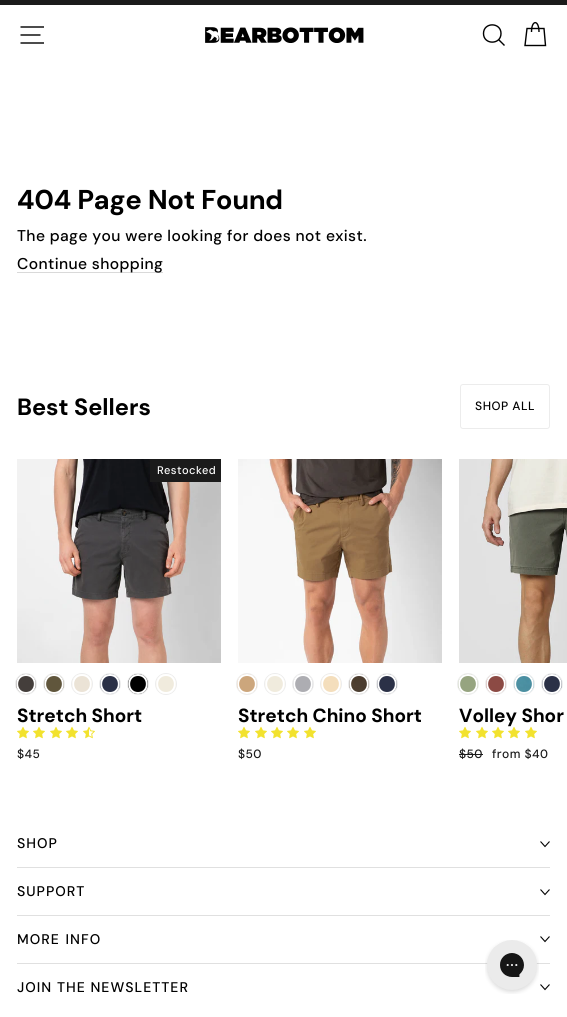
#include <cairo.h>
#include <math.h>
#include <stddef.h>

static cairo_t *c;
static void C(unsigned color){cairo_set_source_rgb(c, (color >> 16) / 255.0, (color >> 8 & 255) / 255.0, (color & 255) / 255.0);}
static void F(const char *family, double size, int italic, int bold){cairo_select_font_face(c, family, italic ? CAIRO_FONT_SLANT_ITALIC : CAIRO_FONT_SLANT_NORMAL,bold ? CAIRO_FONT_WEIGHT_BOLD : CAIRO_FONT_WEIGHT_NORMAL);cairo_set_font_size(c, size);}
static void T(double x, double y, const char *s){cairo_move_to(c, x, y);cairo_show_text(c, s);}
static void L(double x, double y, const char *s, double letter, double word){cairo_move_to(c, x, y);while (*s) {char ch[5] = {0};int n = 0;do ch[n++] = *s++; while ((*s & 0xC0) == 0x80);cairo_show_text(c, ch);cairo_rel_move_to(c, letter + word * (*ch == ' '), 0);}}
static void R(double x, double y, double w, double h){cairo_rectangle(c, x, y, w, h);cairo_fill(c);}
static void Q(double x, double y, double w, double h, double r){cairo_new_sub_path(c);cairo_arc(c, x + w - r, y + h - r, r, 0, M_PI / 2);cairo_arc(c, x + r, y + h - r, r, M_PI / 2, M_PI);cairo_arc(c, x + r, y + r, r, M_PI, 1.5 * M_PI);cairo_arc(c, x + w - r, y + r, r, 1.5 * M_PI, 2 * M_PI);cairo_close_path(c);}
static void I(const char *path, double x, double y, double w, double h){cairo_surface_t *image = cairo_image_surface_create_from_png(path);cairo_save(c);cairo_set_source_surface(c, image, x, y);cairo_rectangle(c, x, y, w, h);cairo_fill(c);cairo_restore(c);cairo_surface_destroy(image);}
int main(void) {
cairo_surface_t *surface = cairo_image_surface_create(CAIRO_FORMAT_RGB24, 567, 1017);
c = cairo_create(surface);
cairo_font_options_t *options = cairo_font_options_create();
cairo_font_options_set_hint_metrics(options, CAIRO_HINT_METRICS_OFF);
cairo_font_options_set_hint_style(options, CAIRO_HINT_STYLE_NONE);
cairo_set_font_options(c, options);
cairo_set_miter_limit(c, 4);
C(0xffffff);
cairo_paint(c);
C(0x1b1b1b);
R(0,0,567,5);
cairo_new_path(c);
cairo_move_to(c,20.5,27);
cairo_line_to(c,44,27);
cairo_move_to(c,20.5,35);
cairo_line_to(c,40.5,35);
cairo_move_to(c,20.5,43);
cairo_line_to(c,44,43);
C(0x000000);
cairo_set_line_width(c,1.4);
cairo_stroke(c);
I("1.png",205,27,159,16);
cairo_new_path(c);
cairo_move_to(c,501,33.5);
cairo_curve_to(c,501,45,483.5,45,483.5,33.5);
cairo_curve_to(c,483.5,22,501,22,501,33.5);
cairo_close_path(c);
cairo_move_to(c,504.5,45.5);
cairo_line_to(c,498.5,39.5);
cairo_move_to(c,531.5,32);
cairo_curve_to(c,531.5,19.5,539,19.5,539,32);
cairo_stroke(c);
cairo_new_path(c);
cairo_move_to(c,527,28.5);
cairo_line_to(c,544,28.5);
cairo_line_to(c,545.5,45.5);
cairo_line_to(c,525,45.5);
cairo_close_path(c);
cairo_stroke(c);
F("DM Sans",27.25,0,1);
T(17,209,"404 Page Not Found");
F("DM Sans Medium",15.6,0,0);
L(17,241,"The page you were looking for does not exist.",.4,0);
C(0xd9d9d9);
R(17,272,146,1);
C(0x000000);
L(17,269,"Continue shopping",.4,0);
F("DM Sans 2",23.5,0,1);
T(17,415,"Best Sellers");
Q(460.5,384.5,89,44,2.5);
C(0xececec);
cairo_set_line_width(c,1);
cairo_stroke(c);
F("DM Sans 2 Medium",12,0,0);
C(0x000000);
L(475,410,"SHOP ALL",.5,0);
I("2.png",17,459,204,204);
C(0x1b1b1b);
R(150,459,71,23);
F("DM Sans 2 Medium",11,0,0);
C(0xffffff);
L(157,474,"Restocked",.4,0);
cairo_new_path(c);
cairo_arc(c,26,684,10.5,0,2 * M_PI);
C(0xececec);
cairo_stroke(c);
I("3.png",16,674,20,20);
cairo_arc(c,54,684,10.5,0,2 * M_PI);
cairo_stroke(c);
I("4.png",44,674,20,20);
C(0xffffff);
cairo_set_fill_rule(c,CAIRO_FILL_RULE_EVEN_ODD);
cairo_new_path(c);
cairo_move_to(c,26,674);
cairo_curve_to(c,13,674,13,694,26,694);
cairo_curve_to(c,39,694,39,674,26,674);
cairo_close_path(c);
cairo_move_to(c,26,676);
cairo_curve_to(c,15.5,676,15.5,692,26,692);
cairo_curve_to(c,36.5,692,36.5,676,26,676);
cairo_close_path(c);
cairo_move_to(c,54,674);
cairo_curve_to(c,41,674,41,694,54,694);
cairo_curve_to(c,67,694,67,674,54,674);
cairo_close_path(c);
cairo_move_to(c,54,676);
cairo_curve_to(c,43.5,676,43.5,692,54,692);
cairo_curve_to(c,64.5,692,64.5,676,54,676);
cairo_close_path(c);
cairo_fill(c);
cairo_arc(c,82,684,10.5,0,2 * M_PI);
C(0xececec);
cairo_stroke(c);
I("5.png",72,674,20,20);
cairo_arc(c,110,684,10.5,0,2 * M_PI);
cairo_stroke(c);
I("6.png",100,674,20,20);
C(0xffffff);
cairo_new_path(c);
cairo_move_to(c,82,674);
cairo_curve_to(c,69,674,69,694,82,694);
cairo_curve_to(c,95,694,95,674,82,674);
cairo_close_path(c);
cairo_move_to(c,82,676);
cairo_curve_to(c,71.5,676,71.5,692,82,692);
cairo_curve_to(c,92.5,692,92.5,676,82,676);
cairo_close_path(c);
cairo_move_to(c,110,674);
cairo_curve_to(c,97,674,97,694,110,694);
cairo_curve_to(c,123,694,123,674,110,674);
cairo_close_path(c);
cairo_move_to(c,110,676);
cairo_curve_to(c,99.5,676,99.5,692,110,692);
cairo_curve_to(c,120.5,692,120.5,676,110,676);
cairo_close_path(c);
cairo_fill(c);
cairo_arc(c,138,684,10.5,0,2 * M_PI);
C(0xececec);
cairo_stroke(c);
C(0x000000);
cairo_arc(c,138,684,10,0,2 * M_PI);
cairo_fill(c);
cairo_arc(c,166,684,10.5,0,2 * M_PI);
C(0xececec);
cairo_stroke(c);
I("7.png",156,674,20,20);
C(0xffffff);
cairo_new_path(c);
cairo_move_to(c,138,674);
cairo_curve_to(c,125,674,125,694,138,694);
cairo_curve_to(c,151,694,151,674,138,674);
cairo_close_path(c);
cairo_move_to(c,138,676);
cairo_curve_to(c,127.5,676,127.5,692,138,692);
cairo_curve_to(c,148.5,692,148.5,676,138,676);
cairo_close_path(c);
cairo_move_to(c,166,674);
cairo_curve_to(c,153,674,153,694,166,694);
cairo_curve_to(c,179,694,179,674,166,674);
cairo_close_path(c);
cairo_move_to(c,166,676);
cairo_curve_to(c,155.5,676,155.5,692,166,692);
cairo_curve_to(c,176.5,692,176.5,676,166,676);
cairo_close_path(c);
cairo_fill(c);
F("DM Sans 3",19,0,1);
C(0x000000);
T(17,722,"Stretch Short");
I("8.png",17,726,12,13);
I("8.png",33,726,12,13);
I("8.png",50,726,12,13);
I("8.png",66,726,12,13);
I("9.png",83,726,12,13);
F("DM Sans 2 Medium",12,0,0);
C(0x1b1b1b);
L(17,758,"$45",.4,0);
I("10.png",238,459,204,204);
cairo_arc(c,247,684,10.5,0,2 * M_PI);
C(0xececec);
cairo_stroke(c);
I("11.png",237,674,20,20);
cairo_arc(c,275,684,10.5,0,2 * M_PI);
cairo_stroke(c);
I("12.png",265,674,20,20);
C(0xffffff);
cairo_new_path(c);
cairo_move_to(c,247,674);
cairo_curve_to(c,234,674,234,694,247,694);
cairo_curve_to(c,260,694,260,674,247,674);
cairo_close_path(c);
cairo_move_to(c,247,676);
cairo_curve_to(c,236.5,676,236.5,692,247,692);
cairo_curve_to(c,257.5,692,257.5,676,247,676);
cairo_close_path(c);
cairo_move_to(c,275,674);
cairo_curve_to(c,262,674,262,694,275,694);
cairo_curve_to(c,288,694,288,674,275,674);
cairo_close_path(c);
cairo_move_to(c,275,676);
cairo_curve_to(c,264.5,676,264.5,692,275,692);
cairo_curve_to(c,285.5,692,285.5,676,275,676);
cairo_close_path(c);
cairo_fill(c);
cairo_arc(c,303,684,10.5,0,2 * M_PI);
C(0xececec);
cairo_stroke(c);
I("13.png",293,674,20,20);
cairo_arc(c,331,684,10.5,0,2 * M_PI);
cairo_stroke(c);
I("14.png",321,674,20,20);
C(0xffffff);
cairo_new_path(c);
cairo_move_to(c,303,674);
cairo_curve_to(c,290,674,290,694,303,694);
cairo_curve_to(c,316,694,316,674,303,674);
cairo_close_path(c);
cairo_move_to(c,303,676);
cairo_curve_to(c,292.5,676,292.5,692,303,692);
cairo_curve_to(c,313.5,692,313.5,676,303,676);
cairo_close_path(c);
cairo_move_to(c,331,674);
cairo_curve_to(c,318,674,318,694,331,694);
cairo_curve_to(c,344,694,344,674,331,674);
cairo_close_path(c);
cairo_move_to(c,331,676);
cairo_curve_to(c,320.5,676,320.5,692,331,692);
cairo_curve_to(c,341.5,692,341.5,676,331,676);
cairo_close_path(c);
cairo_fill(c);
cairo_arc(c,359,684,10.5,0,2 * M_PI);
C(0xececec);
cairo_stroke(c);
I("15.png",349,674,20,20);
cairo_arc(c,387,684,10.5,0,2 * M_PI);
cairo_stroke(c);
I("6.png",377,674,20,20);
C(0xffffff);
cairo_new_path(c);
cairo_move_to(c,359,674);
cairo_curve_to(c,346,674,346,694,359,694);
cairo_curve_to(c,372,694,372,674,359,674);
cairo_close_path(c);
cairo_move_to(c,359,676);
cairo_curve_to(c,348.5,676,348.5,692,359,692);
cairo_curve_to(c,369.5,692,369.5,676,359,676);
cairo_close_path(c);
cairo_move_to(c,387,674);
cairo_curve_to(c,374,674,374,694,387,694);
cairo_curve_to(c,400,694,400,674,387,674);
cairo_close_path(c);
cairo_move_to(c,387,676);
cairo_curve_to(c,376.5,676,376.5,692,387,692);
cairo_curve_to(c,397.5,692,397.5,676,387,676);
cairo_close_path(c);
cairo_fill(c);
F("DM Sans 3",19,0,1);
C(0x000000);
T(238,722,"Stretch Chino Short");
I("8.png",238,726,12,13);
I("8.png",255,726,12,13);
I("8.png",271,726,12,13);
I("8.png",287,726,12,13);
I("8.png",304,726,12,13);
F("DM Sans 3 Medium",12,0,0);
C(0x1b1b1b);
L(238,758,"$50",.4,0);
I("16.png",459,459,108,204);
cairo_arc(c,468,684,10.5,0,2 * M_PI);
C(0xececec);
cairo_stroke(c);
I("17.png",458,674,20,20);
cairo_arc(c,496,684,10.5,0,2 * M_PI);
cairo_stroke(c);
I("18.png",486,674,20,20);
C(0xffffff);
cairo_new_path(c);
cairo_move_to(c,468,674);
cairo_curve_to(c,455,674,455,694,468,694);
cairo_curve_to(c,481,694,481,674,468,674);
cairo_close_path(c);
cairo_move_to(c,468,676);
cairo_curve_to(c,457.5,676,457.5,692,468,692);
cairo_curve_to(c,478.5,692,478.5,676,468,676);
cairo_close_path(c);
cairo_move_to(c,496,674);
cairo_curve_to(c,483,674,483,694,496,694);
cairo_curve_to(c,509,694,509,674,496,674);
cairo_close_path(c);
cairo_move_to(c,496,676);
cairo_curve_to(c,485.5,676,485.5,692,496,692);
cairo_curve_to(c,506.5,692,506.5,676,496,676);
cairo_close_path(c);
cairo_fill(c);
cairo_arc(c,524,684,10.5,0,2 * M_PI);
C(0xececec);
cairo_stroke(c);
I("19.png",514,674,20,20);
cairo_arc(c,552,684,10.5,0,2 * M_PI);
cairo_stroke(c);
I("6.png",542,674,20,20);
C(0xffffff);
cairo_new_path(c);
cairo_move_to(c,524,674);
cairo_curve_to(c,511,674,511,694,524,694);
cairo_curve_to(c,537,694,537,674,524,674);
cairo_close_path(c);
cairo_move_to(c,524,676);
cairo_curve_to(c,513.5,676,513.5,692,524,692);
cairo_curve_to(c,534.5,692,534.5,676,524,676);
cairo_close_path(c);
cairo_move_to(c,552,674);
cairo_curve_to(c,539,674,539,694,552,694);
cairo_curve_to(c,565,694,565,674,552,674);
cairo_close_path(c);
cairo_move_to(c,552,676);
cairo_curve_to(c,541.5,676,541.5,692,552,692);
cairo_curve_to(c,562.5,692,562.5,676,552,676);
cairo_close_path(c);
cairo_fill(c);
F("DM Sans 3",19,0,1);
C(0x000000);
T(459,722,"Volley Shor");
I("8.png",459,726,12,13);
I("8.png",476,726,12,13);
I("8.png",492,726,12,13);
I("20.png",508,726,12,13);
I("8.png",525,726,12,13);
F("DM Sans 3 Medium",12,0,0);
C(0x1b1b1b);
L(459,758,"$50",.4,0);
R(459,754,24,1);
F("DM Sans 2 Medium",12,0,0);
L(492,758,"from $40",.4,0);
F("DM Sans 2 Medium",14,0,0);
C(0x000000);
L(17,848,"SHOP",1,0);
cairo_new_path(c);
cairo_move_to(c,540.5,841.5);
cairo_line_to(c,545,846.5);
cairo_line_to(c,549.5,841.5);
cairo_set_line_width(c,1.1);
cairo_stroke(c);
C(0xe0e0e0);
R(17,867,533,1);
C(0x000000);
L(17,896,"SUPPORT",1,0);
cairo_new_path(c);
cairo_move_to(c,540.5,889.5);
cairo_line_to(c,545,894.5);
cairo_line_to(c,549.5,889.5);
cairo_stroke(c);
C(0xe0e0e0);
R(17,915,533,1);
C(0x000000);
L(17,944,"MORE INFO",1,1);
cairo_new_path(c);
cairo_move_to(c,540.5,936.5);
cairo_line_to(c,545,941.5);
cairo_line_to(c,549.5,936.5);
cairo_stroke(c);
C(0xe0e0e0);
R(17,963,533,1);
C(0x000000);
L(17,992,"JOIN THE NEWSLETTER",1,0);
cairo_new_path(c);
cairo_move_to(c,540.5,984.5);
cairo_line_to(c,545,989.5);
cairo_line_to(c,549.5,984.5);
cairo_stroke(c);
I("21.png",485,940,54,54);
cairo_surface_write_to_png(surface, "o.png");
cairo_font_options_destroy(options);
cairo_destroy(c);
cairo_surface_destroy(surface);
return 0;
}
